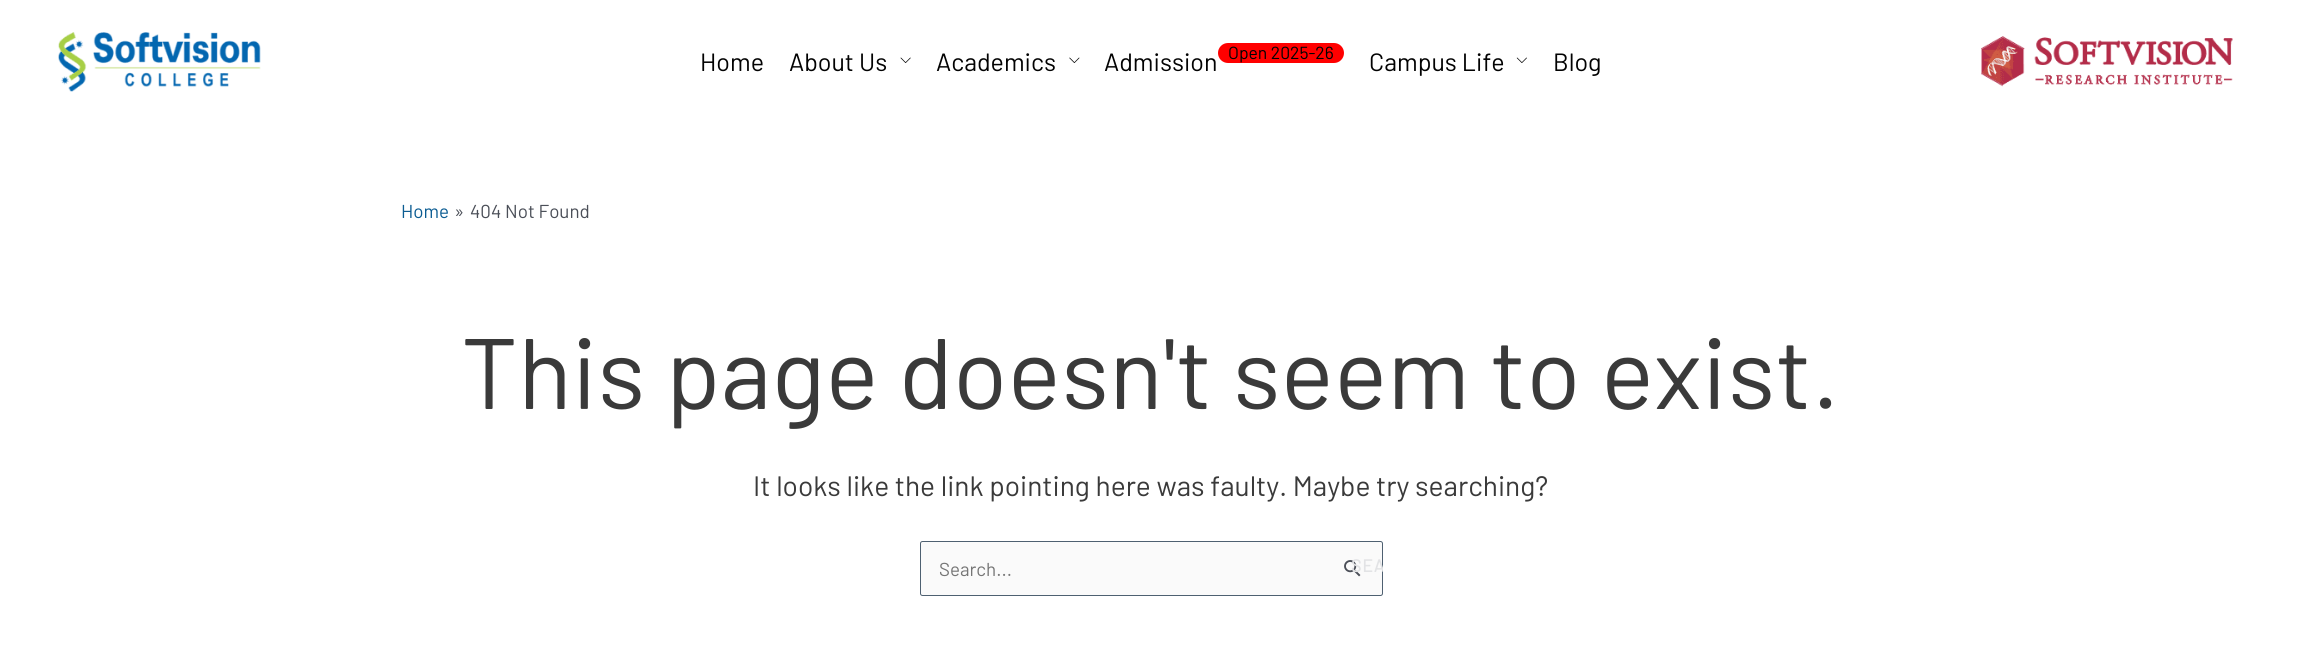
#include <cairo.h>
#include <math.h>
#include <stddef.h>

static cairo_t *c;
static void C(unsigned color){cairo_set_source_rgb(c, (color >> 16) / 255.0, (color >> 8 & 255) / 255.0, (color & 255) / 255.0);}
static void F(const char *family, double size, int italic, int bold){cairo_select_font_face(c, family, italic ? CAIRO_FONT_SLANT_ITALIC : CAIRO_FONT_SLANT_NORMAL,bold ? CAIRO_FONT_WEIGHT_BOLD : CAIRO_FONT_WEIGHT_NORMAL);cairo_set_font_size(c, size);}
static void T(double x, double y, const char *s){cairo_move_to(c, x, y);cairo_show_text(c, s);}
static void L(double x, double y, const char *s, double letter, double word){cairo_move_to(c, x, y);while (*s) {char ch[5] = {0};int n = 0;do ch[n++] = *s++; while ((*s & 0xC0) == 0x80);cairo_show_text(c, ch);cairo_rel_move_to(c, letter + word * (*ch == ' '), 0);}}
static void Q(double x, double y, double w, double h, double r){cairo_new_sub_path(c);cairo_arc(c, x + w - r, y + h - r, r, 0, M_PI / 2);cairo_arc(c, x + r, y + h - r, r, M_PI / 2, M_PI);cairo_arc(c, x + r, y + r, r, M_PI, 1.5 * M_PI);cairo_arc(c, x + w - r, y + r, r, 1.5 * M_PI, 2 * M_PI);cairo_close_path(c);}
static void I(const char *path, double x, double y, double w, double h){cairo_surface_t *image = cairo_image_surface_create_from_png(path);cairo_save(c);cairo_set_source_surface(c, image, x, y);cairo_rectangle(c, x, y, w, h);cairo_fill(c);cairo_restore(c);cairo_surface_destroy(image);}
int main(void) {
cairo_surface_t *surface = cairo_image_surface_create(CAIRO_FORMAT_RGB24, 2301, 664);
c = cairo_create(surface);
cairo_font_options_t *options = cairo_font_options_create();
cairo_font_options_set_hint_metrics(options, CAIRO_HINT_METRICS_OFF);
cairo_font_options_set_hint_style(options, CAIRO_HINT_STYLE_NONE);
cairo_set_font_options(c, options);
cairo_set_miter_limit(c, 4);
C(0xffffff);
cairo_paint(c);
I("1.png",58,32,203,60);
F("Barlow",25,0,0);
C(0x020202);
T(700,71,"Home");
T(789,71,"About Us");
I("2.png",900,57,11,6);
T(936,71,"Academics");
I("3.png",1069,57,11,6);
T(1104,71,"Admission");
C(0xff0000);
Q(1218,43,126,20,10);
cairo_fill(c);
F("Barlow",17.5,0,0);
C(0x020202);
T(1228,59,"Open 2025-26");
F("Barlow",25,0,0);
T(1369,71,"Campus Life");
I("4.png",1516,57,11,6);
T(1553,71,"Blog");
I("5.png",1981,36,252,51);
F("Barlow",18.75,0,0);
C(0x0b5c92);
T(401,218,"Home");
C(0x4b4f58);
T(454,218,"»");
T(470,218,"404 Not Found");
F("Barlow",100,0,0);
C(0x3a3a3a);
T(461,409,"This page doesn't seem to exist.");
F("Barlow",28.1,0,0);
T(753,496,"It looks like the link pointing here was faulty. Maybe try searching?");
C(0xfafafa);
Q(920.5,541.5,462,54,2);
cairo_fill_preserve(c);
C(0x4e6071);
cairo_set_line_width(c,1);
cairo_stroke(c);
I("6.png",1344,560,17,17);
cairo_save(c);
Q(1326,541,57,50,2.5);
cairo_clip(c);
F("Barlow",17.5,0,1);
C(0xe2e3e5);
L(1351,572,"SEA",1,0);
cairo_restore(c);
F("Barlow",18.75,0,0);
C(0x757575);
T(939,576,"Search...");
cairo_surface_write_to_png(surface, "o.png");
cairo_font_options_destroy(options);
cairo_destroy(c);
cairo_surface_destroy(surface);
return 0;
}
